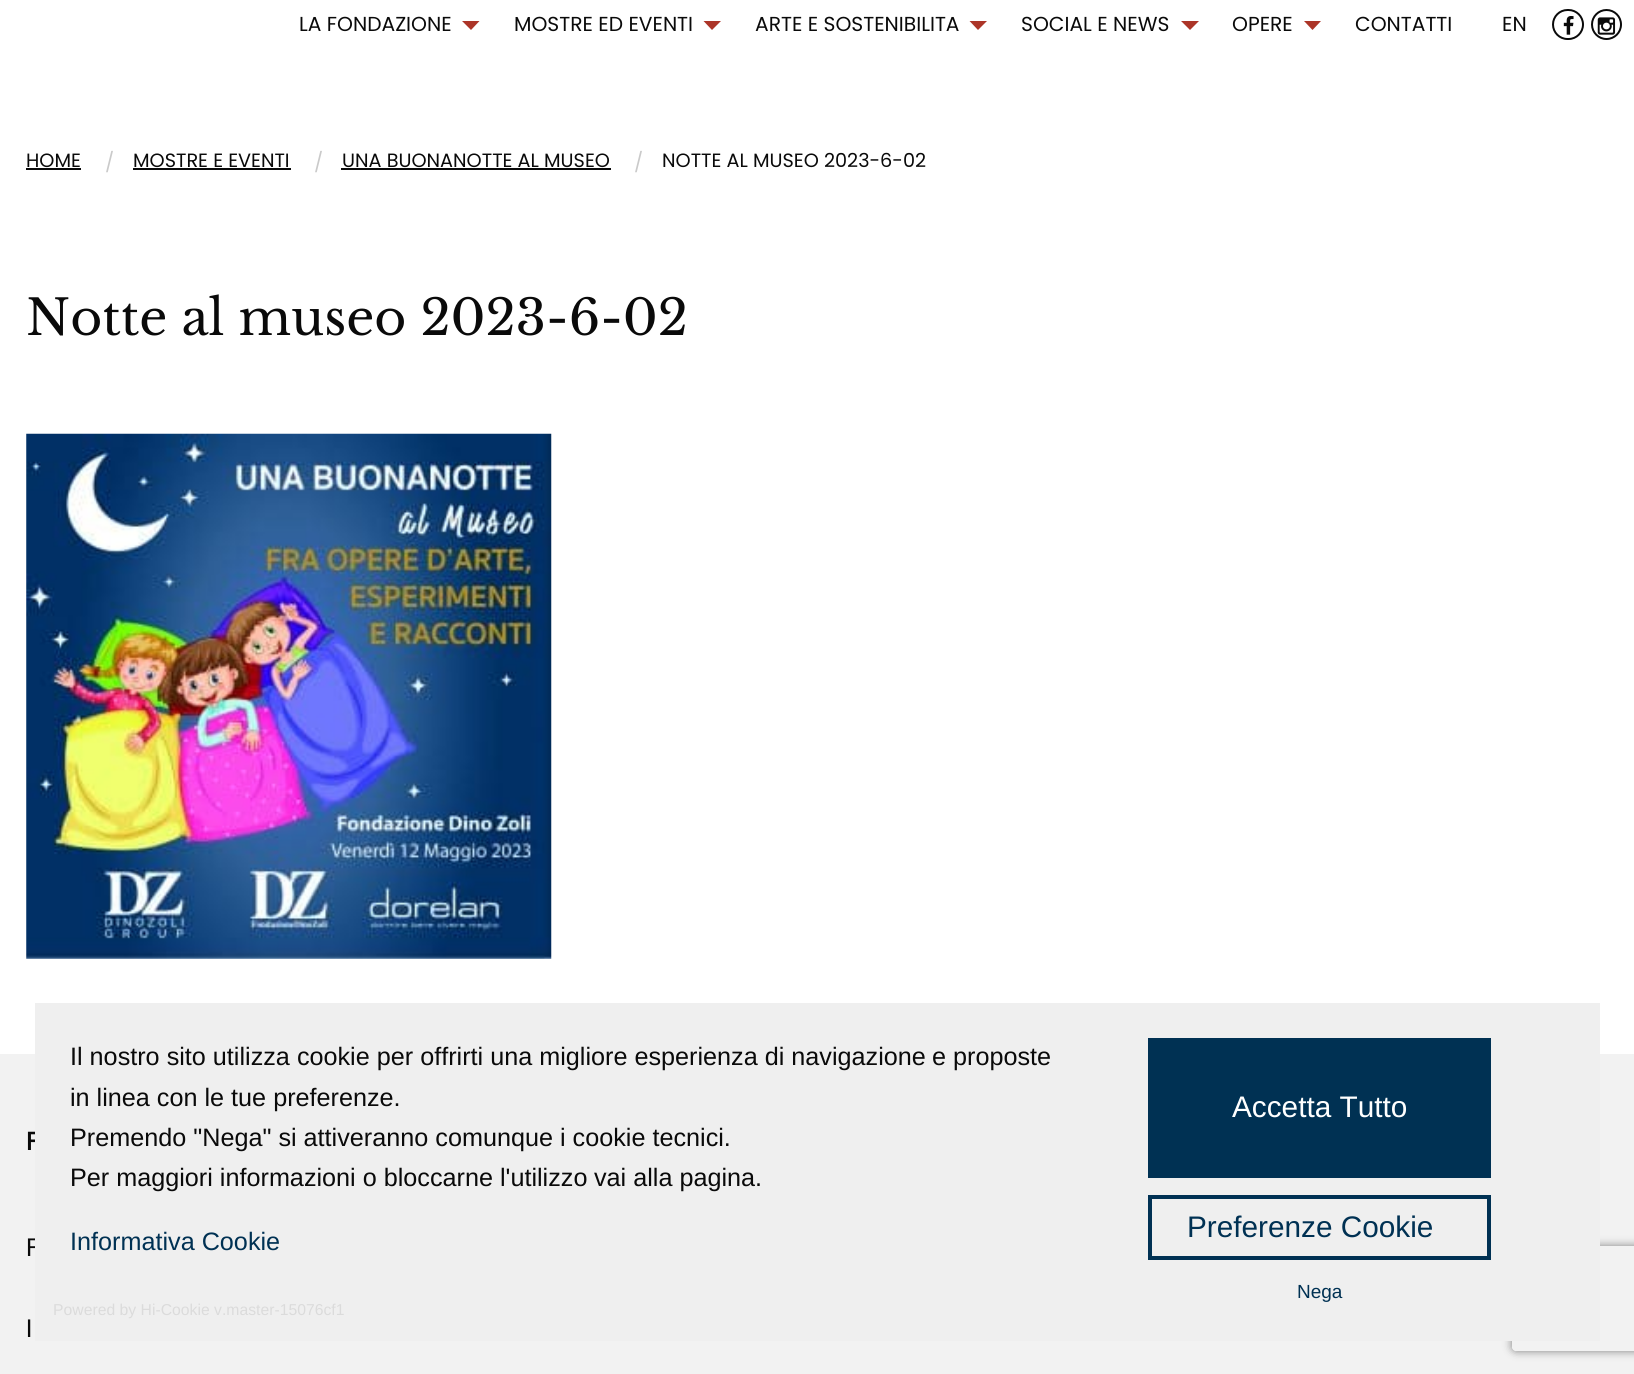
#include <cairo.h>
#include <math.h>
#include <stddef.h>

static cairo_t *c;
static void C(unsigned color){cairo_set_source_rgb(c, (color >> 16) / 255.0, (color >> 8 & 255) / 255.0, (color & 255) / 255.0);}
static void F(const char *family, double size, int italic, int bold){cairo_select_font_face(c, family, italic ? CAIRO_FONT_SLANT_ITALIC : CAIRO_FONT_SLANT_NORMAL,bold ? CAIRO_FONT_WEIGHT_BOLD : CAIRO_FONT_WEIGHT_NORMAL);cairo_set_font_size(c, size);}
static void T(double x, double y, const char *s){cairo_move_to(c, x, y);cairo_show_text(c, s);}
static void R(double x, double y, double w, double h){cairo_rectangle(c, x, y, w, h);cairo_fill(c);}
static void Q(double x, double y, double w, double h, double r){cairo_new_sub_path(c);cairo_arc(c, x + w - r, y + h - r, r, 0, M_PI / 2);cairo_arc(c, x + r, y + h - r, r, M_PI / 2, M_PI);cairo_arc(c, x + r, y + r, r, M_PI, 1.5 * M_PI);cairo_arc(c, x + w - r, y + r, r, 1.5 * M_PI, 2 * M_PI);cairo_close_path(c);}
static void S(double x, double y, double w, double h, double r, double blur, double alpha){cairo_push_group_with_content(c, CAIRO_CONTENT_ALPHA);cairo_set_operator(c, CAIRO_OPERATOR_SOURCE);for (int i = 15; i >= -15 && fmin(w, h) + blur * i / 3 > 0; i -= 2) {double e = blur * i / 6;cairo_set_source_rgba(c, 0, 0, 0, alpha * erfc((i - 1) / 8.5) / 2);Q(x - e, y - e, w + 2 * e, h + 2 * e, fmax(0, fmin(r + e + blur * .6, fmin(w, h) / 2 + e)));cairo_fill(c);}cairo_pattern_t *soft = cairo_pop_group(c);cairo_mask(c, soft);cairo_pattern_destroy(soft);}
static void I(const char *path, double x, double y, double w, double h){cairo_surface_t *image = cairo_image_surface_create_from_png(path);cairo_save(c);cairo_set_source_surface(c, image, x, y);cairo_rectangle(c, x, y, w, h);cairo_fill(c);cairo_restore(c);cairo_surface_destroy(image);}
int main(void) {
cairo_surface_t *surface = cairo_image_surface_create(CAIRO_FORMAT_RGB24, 1634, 1374);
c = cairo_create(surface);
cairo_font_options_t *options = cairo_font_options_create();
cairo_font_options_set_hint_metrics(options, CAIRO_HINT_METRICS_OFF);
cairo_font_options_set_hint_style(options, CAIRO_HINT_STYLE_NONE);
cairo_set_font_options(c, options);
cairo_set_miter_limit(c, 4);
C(0xffffff);
cairo_paint(c);
F("Poppins",20.25,0,0);
C(0x0a0a0a);
T(299,31,"LA FONDAZIONE");
C(0xac3528);
cairo_new_path(c);
cairo_move_to(c,462,21);
cairo_line_to(c,479.5,21);
cairo_line_to(c,471,30);
cairo_close_path(c);
cairo_fill(c);
C(0x0a0a0a);
T(514,31,"MOSTRE ED EVENTI");
C(0xac3528);
cairo_new_path(c);
cairo_move_to(c,703.5,21);
cairo_line_to(c,721,21);
cairo_line_to(c,712,30);
cairo_close_path(c);
cairo_fill(c);
C(0x0a0a0a);
T(755,31,"ARTE E SOSTENIBILITA");
C(0xac3528);
cairo_new_path(c);
cairo_move_to(c,969.5,21);
cairo_line_to(c,987,21);
cairo_line_to(c,978,30);
cairo_close_path(c);
cairo_fill(c);
C(0x0a0a0a);
T(1021,31,"SOCIAL E NEWS");
C(0xac3528);
cairo_new_path(c);
cairo_move_to(c,1181,21);
cairo_line_to(c,1199,21);
cairo_line_to(c,1190,30);
cairo_close_path(c);
cairo_fill(c);
C(0x0a0a0a);
T(1232,31,"OPERE");
C(0xac3528);
cairo_new_path(c);
cairo_move_to(c,1304,21);
cairo_line_to(c,1321,21);
cairo_line_to(c,1312.5,30);
cairo_close_path(c);
cairo_fill(c);
C(0x0a0a0a);
T(1355,31,"CONTATTI");
T(1502,31,"EN");
Q(1553,10,30,29,14.5);
cairo_stroke(c);
I("1.png",1563,16,11,19);
cairo_arc(c,1606.5,24.5,14.5,0,2 * M_PI);
cairo_stroke(c);
I("2.png",1597,17,19,18);
F("Poppins",19.25,0,0);
T(26,167,"HOME");
R(26,168,55,2);
C(0xcacaca);
T(105,169,"/");
C(0x0a0a0a);
T(133,167,"MOSTRE E EVENTI");
R(133,168,158,2);
C(0xcacaca);
T(314,169,"/");
C(0x0a0a0a);
T(342,167,"UNA BUONANOTTE AL MUSEO");
R(341,168,270,2);
C(0xcacaca);
T(634,169,"/");
C(0x0a0a0a);
T(662,167,"NOTTE AL MUSEO 2023-6-02");
F("Libre Baskerville",49,0,0);
T(26,335,"Notte al museo 2023-6-02");
I("3.png",26,433,526,526);
C(0xf2f2f2);
R(0,1054,1634,320);
F("Poppins",25.2,0,1);
C(0x0a0a0a);
T(26,1150,"F");
F("Poppins",25.2,0,0);
T(26,1256,"F");
T(26,1337,"I");
cairo_save(c);
cairo_set_fill_rule(c,CAIRO_FILL_RULE_EVEN_ODD);
cairo_new_path(c);
cairo_move_to(c,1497,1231);
cairo_line_to(c,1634,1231);
cairo_line_to(c,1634,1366);
cairo_line_to(c,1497,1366);
cairo_close_path(c);
cairo_move_to(c,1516,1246);
cairo_line_to(c,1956,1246);
cairo_curve_to(c,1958,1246,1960,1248,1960,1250);
cairo_line_to(c,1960,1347);
cairo_curve_to(c,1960,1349,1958,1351,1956,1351);
cairo_line_to(c,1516,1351);
cairo_curve_to(c,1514,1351,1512,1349,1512,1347);
cairo_line_to(c,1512,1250);
cairo_curve_to(c,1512,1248,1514,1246,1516,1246);
cairo_close_path(c);
cairo_clip(c);
C(0x808080);
S(1512,1246,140,105,4,4.5,1);
cairo_restore(c);
C(0xefefef);
R(35,1003,1565,338);
F("Liberation Sans",25.2,0,0);
C(0x0a0a0a);
T(70,1065,"Il nostro sito utilizza cookie per offrirti una migliore esperienza di navigazione");
T(932,1065,"e proposte");
T(70,1106,"in linea con le tue preferenze.");
T(70,1146,"Premendo \"Nega\" si attiveranno comunque i cookie tecnici.");
T(70,1186,"Per maggiori informazioni o bloccarne l'utilizzo");
T(594,1186,"vai alla pagina.");
C(0x003153);
T(70,1250,"Informativa Cookie");
R(1148,1038,343,140);
F("Liberation Sans",29.75,0,0);
C(0xffffff);
T(1232,1117,"Accetta Tutto");
cairo_rectangle(c,1150,1197,339,61);
C(0x003153);
cairo_set_line_width(c,4);
cairo_stroke(c);
T(1187,1237,"Preferenze Cookie");
F("Liberation Sans",19,0,0);
T(1297,1298,"Nega");
F("Liberation Sans",15.75,0,0);
C(0xdbdbdb);
T(53,1315,"Powered by Hi-Cookie v.master-15076cf1");
cairo_surface_write_to_png(surface, "o.png");
cairo_font_options_destroy(options);
cairo_destroy(c);
cairo_surface_destroy(surface);
return 0;
}
